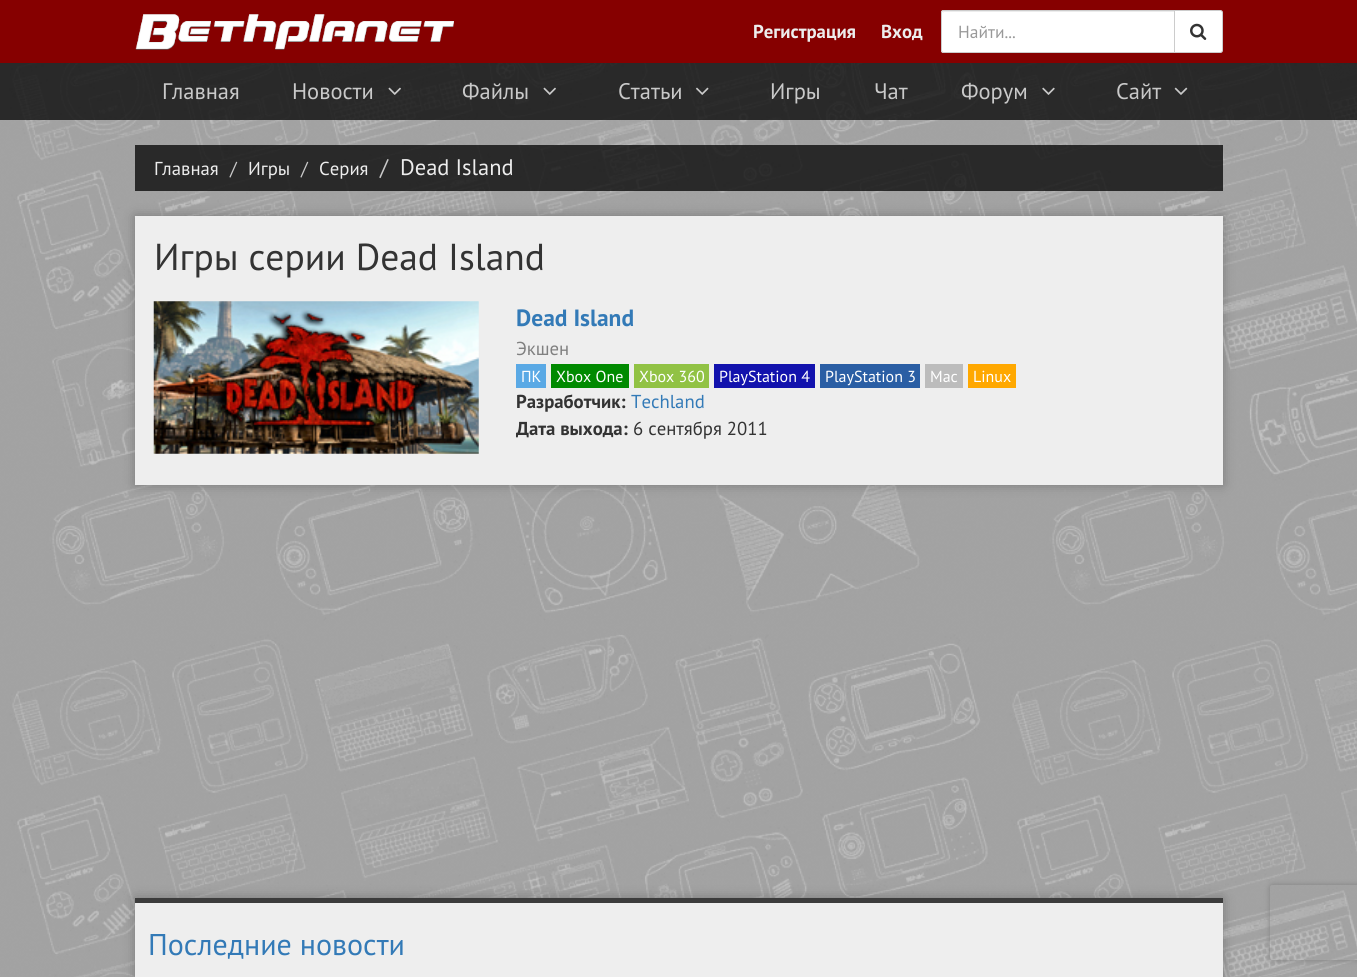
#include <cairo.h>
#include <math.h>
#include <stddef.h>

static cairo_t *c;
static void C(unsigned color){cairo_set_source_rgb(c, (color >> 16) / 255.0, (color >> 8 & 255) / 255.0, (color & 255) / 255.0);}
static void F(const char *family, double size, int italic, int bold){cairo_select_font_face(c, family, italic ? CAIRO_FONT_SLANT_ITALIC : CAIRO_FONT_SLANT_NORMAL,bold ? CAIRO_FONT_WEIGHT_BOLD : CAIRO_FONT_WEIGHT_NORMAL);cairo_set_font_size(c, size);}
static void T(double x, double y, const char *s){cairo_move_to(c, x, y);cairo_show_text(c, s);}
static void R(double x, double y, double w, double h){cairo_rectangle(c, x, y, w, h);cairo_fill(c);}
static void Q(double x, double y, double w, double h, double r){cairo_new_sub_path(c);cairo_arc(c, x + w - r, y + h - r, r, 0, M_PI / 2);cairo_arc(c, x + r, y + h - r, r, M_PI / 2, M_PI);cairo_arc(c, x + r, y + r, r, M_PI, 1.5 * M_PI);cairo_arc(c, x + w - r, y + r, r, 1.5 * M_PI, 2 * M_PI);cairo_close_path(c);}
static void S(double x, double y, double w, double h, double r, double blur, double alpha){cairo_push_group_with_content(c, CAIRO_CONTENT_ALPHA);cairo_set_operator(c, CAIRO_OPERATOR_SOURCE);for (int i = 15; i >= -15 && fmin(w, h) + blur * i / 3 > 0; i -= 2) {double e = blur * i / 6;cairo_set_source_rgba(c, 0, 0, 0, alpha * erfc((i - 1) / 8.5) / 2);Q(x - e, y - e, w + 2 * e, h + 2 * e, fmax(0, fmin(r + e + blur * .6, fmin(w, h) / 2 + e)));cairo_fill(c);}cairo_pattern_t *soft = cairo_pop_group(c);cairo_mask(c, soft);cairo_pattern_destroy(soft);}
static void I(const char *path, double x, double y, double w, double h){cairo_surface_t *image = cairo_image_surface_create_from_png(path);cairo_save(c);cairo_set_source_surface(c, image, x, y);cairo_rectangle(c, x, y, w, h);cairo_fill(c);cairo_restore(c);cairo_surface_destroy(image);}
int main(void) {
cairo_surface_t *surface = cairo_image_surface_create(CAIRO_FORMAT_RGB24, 1357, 977);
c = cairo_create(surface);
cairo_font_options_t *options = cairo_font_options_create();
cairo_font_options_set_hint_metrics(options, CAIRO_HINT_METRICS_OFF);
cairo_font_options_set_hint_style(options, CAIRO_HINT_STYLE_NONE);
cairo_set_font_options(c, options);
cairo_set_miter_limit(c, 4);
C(0xffffff);
cairo_paint(c);
I("1.png",0,63,1357,914);
C(0x860000);
R(0,0,1357,63);
I("2.png",135,14,319,36);
F("PT Sans",18.75,0,1);
C(0xededed);
T(753,38,"Регистрация");
T(881,38,"Вход");
C(0xffffff);
cairo_new_path(c);
cairo_move_to(c,1174.5,10.5);
cairo_line_to(c,1220.5,10.5);
cairo_curve_to(c,1221.5,10.5,1222.5,11.5,1222.5,12.5);
cairo_line_to(c,1222.5,50.5);
cairo_curve_to(c,1222.5,51.5,1221.5,52.5,1220.5,52.5);
cairo_line_to(c,1174.5,52.5);
cairo_close_path(c);
cairo_fill_preserve(c);
C(0xcccccc);
cairo_set_line_width(c,1);
cairo_stroke(c);
C(0xffffff);
cairo_new_path(c);
cairo_move_to(c,943.5,10);
cairo_line_to(c,1175,10);
cairo_line_to(c,1175,53);
cairo_line_to(c,943.5,53);
cairo_curve_to(c,942,53,941,52,941,50.5);
cairo_line_to(c,941,12.5);
cairo_curve_to(c,941,11,942,10,943.5,10);
cairo_close_path(c);
cairo_fill(c);
C(0xececec);
cairo_new_path(c);
cairo_move_to(c,944,12);
cairo_line_to(c,1174,12);
cairo_line_to(c,1174,11);
cairo_line_to(c,944,11);
cairo_curve_to(c,943,11,943,12,943,13);
cairo_close_path(c);
cairo_fill(c);
cairo_new_path(c);
cairo_move_to(c,943.5,10.5);
cairo_line_to(c,1174.5,10.5);
cairo_line_to(c,1174.5,52.5);
cairo_line_to(c,943.5,52.5);
cairo_curve_to(c,942.5,52.5,941.5,51.5,941.5,50.5);
cairo_line_to(c,941.5,12.5);
cairo_curve_to(c,941.5,11.5,942.5,10.5,943.5,10.5);
cairo_close_path(c);
C(0xcccccc);
cairo_stroke(c);
F("PT Sans",17.5,0,0);
C(0x999999);
T(958,38,"Найти...");
I("3.png",1190,23,17,17);
cairo_set_source_rgba(c,0,0,0,0.75);
R(0,63,1357,57);
F("PT Sans",22.5,0,0);
C(0xc9c9c9);
T(162,99,"Главная");
T(292,99,"Новости");
I("4.png",388,87,13,8);
T(462,99,"Файлы");
I("5.png",543,87,13,8);
T(618,99,"Статьи");
I("6.png",696,87,13,8);
T(770,99,"Игры");
T(874,99,"Чат");
T(961,99,"Форум");
I("7.png",1042,87,13,8);
T(1116,99,"Сайт");
I("8.png",1174,87,14,8);
cairo_set_source_rgba(c,0,0,0,0.75);
R(135,145,1088,46);
F("PT Sans",18.75,0,0);
C(0xededed);
T(154,175,"Главная");
C(0xc9c9c9);
T(230,175,"/");
C(0xededed);
T(248,175,"Игры");
C(0xc9c9c9);
T(301,175,"/");
C(0xededed);
T(319,175,"Серия");
F("PT Sans",22.5,0,0);
C(0xc9c9c9);
T(380,175,"/");
C(0xededed);
T(400,175,"Dead Island");
C(0x000000);
S(135,216,1088,269,0,6,.25);
C(0xeeeeee);
R(135,216,1088,269);
F("PT Sans",37.5,0,0);
C(0x333333);
T(154,270,"Игры серии Dead Island");
I("9.png",153,301,326,153);
F("PT Sans",23.5,0,1);
C(0x337ab7);
T(516,326,"Dead Island");
F("PT Sans",18.75,0,0);
C(0x808080);
T(516,355,"Экшен");
C(0x5aa9e5);
R(516,364,30,24);
F("PT Sans",16,0,0);
C(0xffffff);
T(521,382,"ПК");
C(0x008a00);
R(551,364,78,24);
C(0xffffff);
T(556,382,"Xbox One");
C(0x91c244);
R(634,364,75,24);
C(0xffffff);
T(639,382,"Xbox 360");
C(0x1212ad);
R(714,364,101,24);
C(0xffffff);
T(719,382,"PlayStation 4");
C(0x2a5ea4);
R(820,364,100,24);
C(0xffffff);
T(825,382,"PlayStation 3");
C(0xbcbcbc);
R(925,364,38,24);
C(0xffffff);
T(930,382,"Mac");
C(0xffa800);
R(968,364,48,24);
C(0xffffff);
T(973,382,"Linux");
F("PT Sans",18.75,0,1);
C(0x333333);
T(516,408,"Разработчик:");
F("PT Sans",18.75,0,0);
C(0x337ab7);
T(631,408,"Techland");
F("PT Sans",18.75,0,1);
C(0x333333);
T(516,435,"Дата выхода:");
F("PT Sans",18.75,0,0);
T(633,435,"6 сентября 2011");
C(0x000000);
S(135,898,1088,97,0,6,.25);
C(0xeeeeee);
R(135,903,1088,74);
C(0x3c3c3c);
R(135,898,1088,5);
F("PT Sans",30,0,0);
C(0x337ab7);
T(148,955,"Последние новости");
cairo_save(c);
cairo_set_fill_rule(c,CAIRO_FILL_RULE_EVEN_ODD);
cairo_new_path(c);
cairo_move_to(c,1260,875);
cairo_line_to(c,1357,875);
cairo_line_to(c,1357,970);
cairo_line_to(c,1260,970);
cairo_close_path(c);
cairo_move_to(c,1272.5,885);
cairo_line_to(c,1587.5,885);
cairo_curve_to(c,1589,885,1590,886,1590,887.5);
cairo_line_to(c,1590,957.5);
cairo_curve_to(c,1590,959,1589,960,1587.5,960);
cairo_line_to(c,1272.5,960);
cairo_curve_to(c,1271,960,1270,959,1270,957.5);
cairo_line_to(c,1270,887.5);
cairo_curve_to(c,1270,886,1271,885,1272.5,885);
cairo_close_path(c);
cairo_clip(c);
C(0x808080);
S(1270,885,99,75,2.5,3,1);
cairo_restore(c);
cairo_surface_write_to_png(surface, "o.png");
cairo_font_options_destroy(options);
cairo_destroy(c);
cairo_surface_destroy(surface);
return 0;
}
